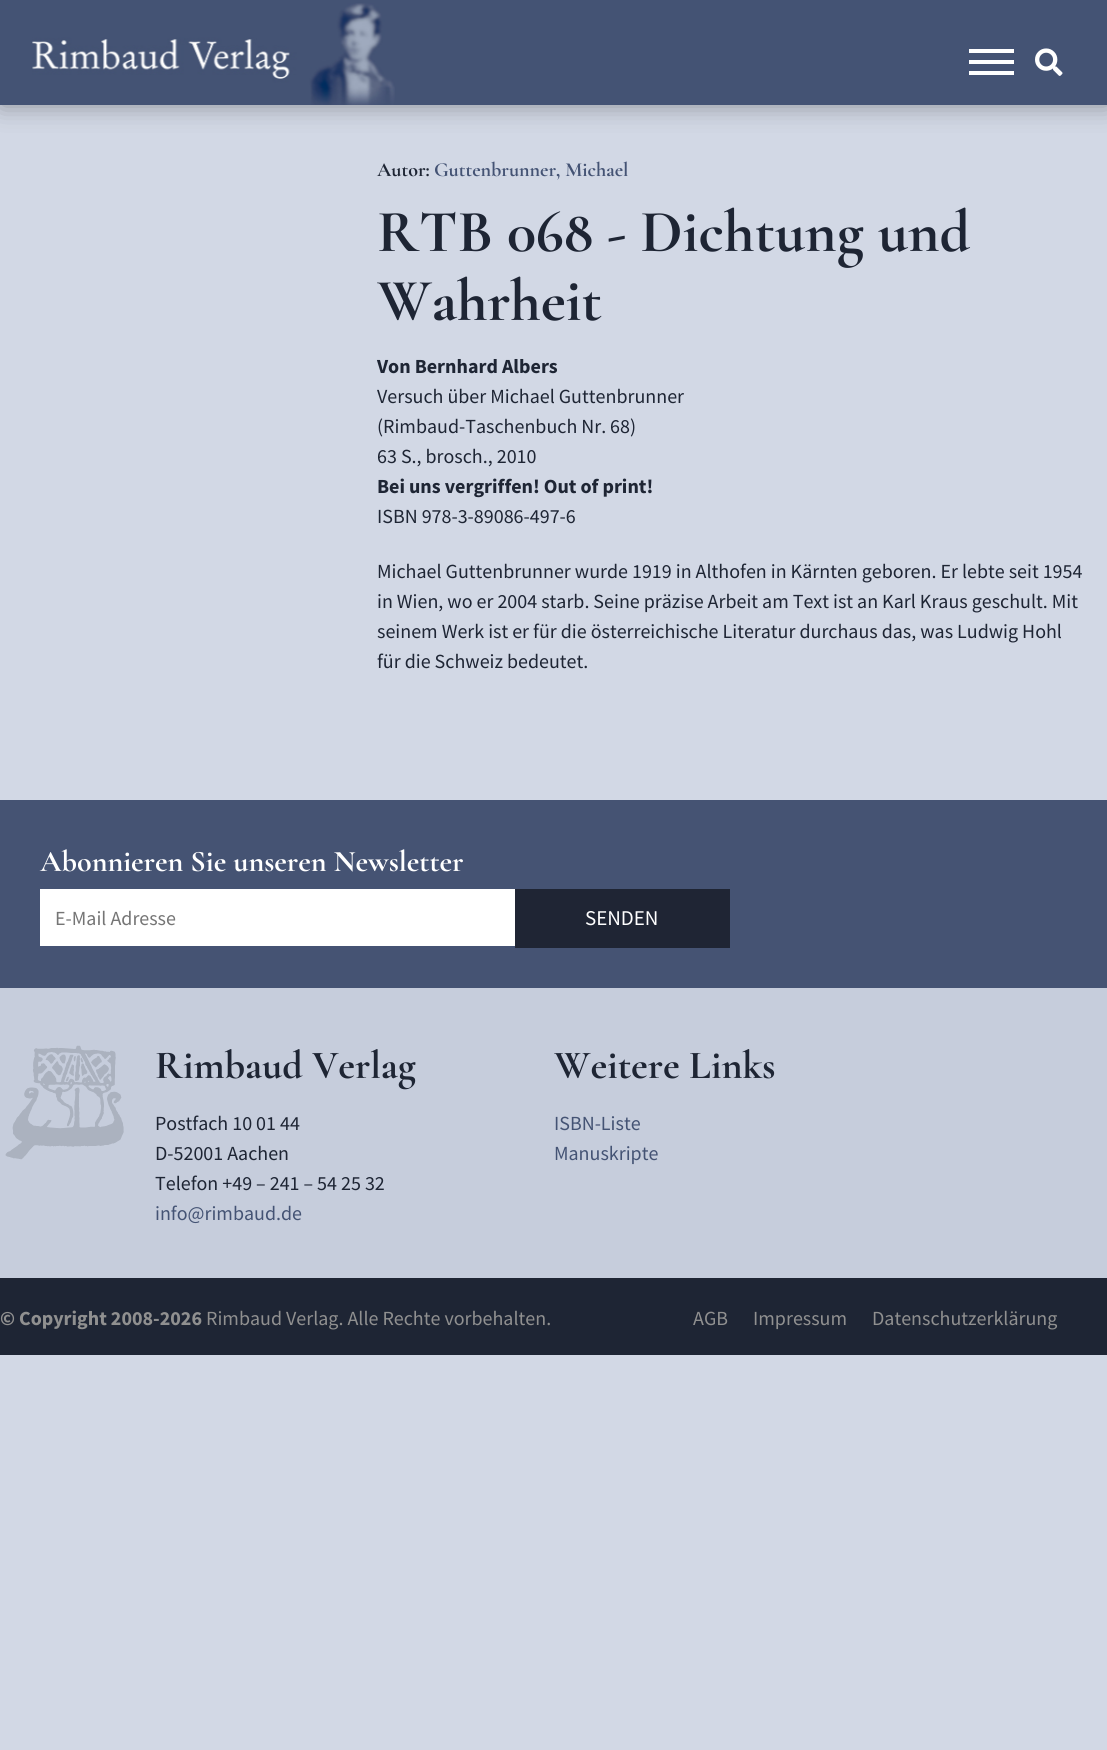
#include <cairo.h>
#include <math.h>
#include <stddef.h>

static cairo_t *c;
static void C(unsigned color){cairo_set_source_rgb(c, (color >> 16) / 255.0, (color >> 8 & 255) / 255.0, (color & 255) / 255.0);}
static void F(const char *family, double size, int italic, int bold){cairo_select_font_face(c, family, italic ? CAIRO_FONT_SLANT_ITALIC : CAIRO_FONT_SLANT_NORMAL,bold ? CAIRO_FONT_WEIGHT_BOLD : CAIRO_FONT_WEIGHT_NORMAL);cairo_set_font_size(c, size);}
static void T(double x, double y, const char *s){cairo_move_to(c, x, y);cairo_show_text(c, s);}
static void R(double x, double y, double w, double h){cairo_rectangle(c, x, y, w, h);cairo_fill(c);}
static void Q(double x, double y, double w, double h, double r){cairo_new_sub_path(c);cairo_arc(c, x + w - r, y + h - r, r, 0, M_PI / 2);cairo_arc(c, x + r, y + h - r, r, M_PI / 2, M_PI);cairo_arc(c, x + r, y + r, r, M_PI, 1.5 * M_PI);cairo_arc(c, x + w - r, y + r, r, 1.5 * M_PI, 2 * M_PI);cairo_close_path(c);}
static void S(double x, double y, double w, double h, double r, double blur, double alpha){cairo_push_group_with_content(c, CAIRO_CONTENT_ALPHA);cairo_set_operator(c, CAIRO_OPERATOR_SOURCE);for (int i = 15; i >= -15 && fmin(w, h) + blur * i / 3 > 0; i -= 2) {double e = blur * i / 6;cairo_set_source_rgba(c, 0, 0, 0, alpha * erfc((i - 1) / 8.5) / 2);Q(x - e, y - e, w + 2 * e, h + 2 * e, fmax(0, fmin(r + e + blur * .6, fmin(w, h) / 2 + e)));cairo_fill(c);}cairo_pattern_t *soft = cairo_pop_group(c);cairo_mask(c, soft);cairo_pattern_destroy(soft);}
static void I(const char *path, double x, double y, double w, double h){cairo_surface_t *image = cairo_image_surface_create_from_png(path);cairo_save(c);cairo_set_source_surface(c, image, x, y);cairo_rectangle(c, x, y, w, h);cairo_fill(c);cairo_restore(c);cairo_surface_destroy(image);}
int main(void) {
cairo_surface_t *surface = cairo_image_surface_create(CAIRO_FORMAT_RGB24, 1107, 1750);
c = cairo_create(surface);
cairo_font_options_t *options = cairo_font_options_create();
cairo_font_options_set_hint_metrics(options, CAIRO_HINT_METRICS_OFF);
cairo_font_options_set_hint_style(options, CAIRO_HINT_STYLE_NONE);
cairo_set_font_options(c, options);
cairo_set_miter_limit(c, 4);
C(0xd2d8e5);
cairo_paint(c);
C(0x0e0e0e);
S(1,1,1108,105,0,12.5,.35);
C(0x445374);
R(0,0,1107,105);
I("1.png",32,3,363,102);
C(0xffffff);
R(969,49,45,4);
R(969,60,45,4);
R(969,71,45,4);
I("2.png",1035,48,28,28);
F("Cormorant Garamond",20,0,1);
C(0x1e2534);
T(377,176,"Autor:");
C(0x445374);
T(434,176,"Guttenbrunner, Michael");
F("Cormorant Garamond",60,0,1);
C(0x1e2534);
T(377,251,"RTB 068 - Dichtung und");
T(377,320,"Wahrheit");
F("Source Sans Pro",20,0,1);
T(377,373,"Von Bernhard Albers");
F("Source Sans Pro",20,0,0);
T(377,403,"Versuch über Michael Guttenbrunner");
T(377,433,"(Rimbaud-Taschenbuch Nr. 68)");
T(377,463,"63 S., brosch., 2010");
F("Source Sans Pro",20,0,1);
T(377,493,"Bei uns vergriffen! Out of print!");
F("Source Sans Pro",20,0,0);
T(377,523,"ISBN 978-3-89086-497-6");
T(377,578,"Michael Guttenbrunner wurde 1919 in Althofen in Kärnten geboren. Er lebte seit 1954");
T(377,608,"in Wien, wo er 2004 starb. Seine präzise Arbeit am Text ist an Karl Kraus geschult. Mit");
T(377,638,"seinem Werk ist er für die österreichische Literatur durchaus das, was Ludwig Hohl");
T(377,668,"für die Schweiz bedeutet.");
C(0x455373);
R(0,800,1107,188);
F("Cormorant Garamond",30,0,1);
C(0xffffff);
T(40,871,"Abonnieren Sie unseren Newsletter");
R(40,889,475,57);
F("Source Sans Pro",20,0,0);
C(0x757575);
T(55,925,"E-Mail Adresse");
C(0x1f2534);
R(515,889,215,59);
F("Source Sans Pro",21,0,0);
C(0xffffff);
T(585,925,"SENDEN");
C(0xc6cddc);
R(0,988,1107,290);
I("3.png",5,1045,119,115);
F("Cormorant Garamond",40,0,1);
C(0x1e2534);
T(155,1078,"Rimbaud Verlag");
F("Source Sans Pro",20,0,0);
T(155,1130,"Postfach 10 01 44");
T(155,1160,"D-52001 Aachen");
T(155,1190,"Telefon +49 – 241 – 54 25 32");
C(0x445374);
T(155,1220,"info@rimbaud.de");
F("Cormorant Garamond",40,0,1);
C(0x1e2534);
T(554,1078,"Weitere Links");
F("Source Sans Pro",20,0,0);
C(0x445374);
T(554,1130,"ISBN-Liste");
T(554,1160,"Manuskripte");
C(0x1e2534);
R(0,1278,1107,77);
F("Source Sans Pro",20,0,1);
C(0x909090);
T(0,1325,"© Copyright 2008-2026");
F("Source Sans Pro",20,0,0);
T(206,1325,"Rimbaud Verlag. Alle Rechte vorbehalten.");
T(693,1325,"AGB");
T(753,1325,"Impressum");
T(872,1325,"Datenschutzerklärung");
cairo_surface_write_to_png(surface, "o.png");
cairo_font_options_destroy(options);
cairo_destroy(c);
cairo_surface_destroy(surface);
return 0;
}
